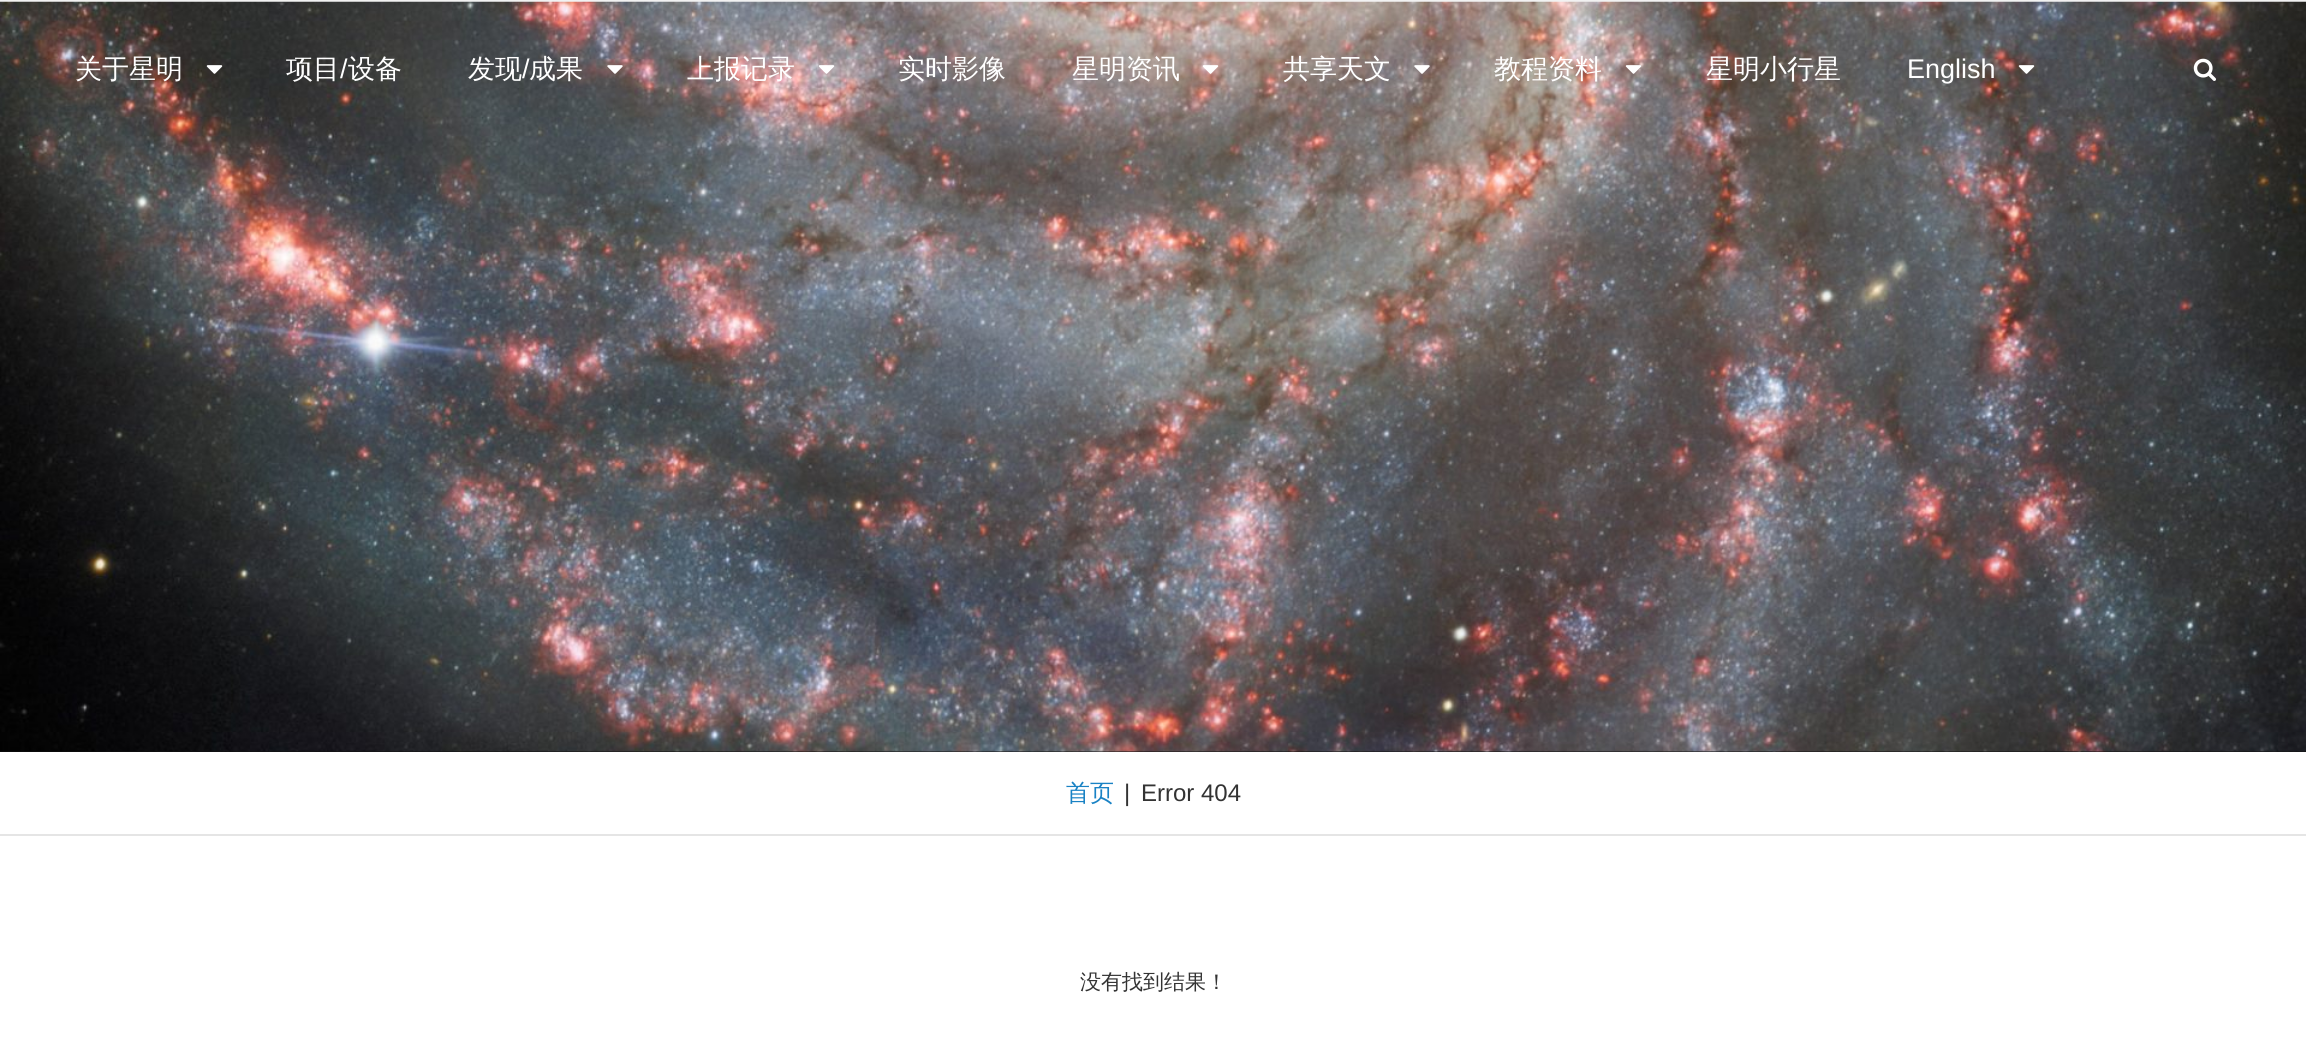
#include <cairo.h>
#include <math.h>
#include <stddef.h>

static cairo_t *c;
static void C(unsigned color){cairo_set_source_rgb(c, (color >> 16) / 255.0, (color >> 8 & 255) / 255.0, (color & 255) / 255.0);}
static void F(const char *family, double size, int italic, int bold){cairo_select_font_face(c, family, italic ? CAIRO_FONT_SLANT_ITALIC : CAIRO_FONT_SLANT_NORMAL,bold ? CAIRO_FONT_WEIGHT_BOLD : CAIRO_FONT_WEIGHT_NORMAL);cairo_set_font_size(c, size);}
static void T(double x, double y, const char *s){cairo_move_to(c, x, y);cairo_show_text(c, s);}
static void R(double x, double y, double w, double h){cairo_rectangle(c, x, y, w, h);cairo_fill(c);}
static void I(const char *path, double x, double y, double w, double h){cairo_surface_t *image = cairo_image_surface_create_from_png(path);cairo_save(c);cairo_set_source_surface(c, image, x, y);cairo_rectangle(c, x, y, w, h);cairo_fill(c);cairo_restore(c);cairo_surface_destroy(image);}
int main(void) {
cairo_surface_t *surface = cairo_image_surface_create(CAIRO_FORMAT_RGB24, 2306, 1037);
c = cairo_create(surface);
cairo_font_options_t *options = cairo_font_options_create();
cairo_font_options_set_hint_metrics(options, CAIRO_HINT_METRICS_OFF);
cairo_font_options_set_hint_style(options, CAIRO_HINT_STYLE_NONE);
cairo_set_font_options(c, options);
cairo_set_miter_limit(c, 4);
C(0xf2f2f2);
cairo_paint(c);
C(0xffffff);
R(0,752,2306,285);
C(0x111111);
R(0,751,2306,1);
I("1.png",0,1,2306,751);
F("WenQuanYi Zen Hei Medium",27,0,0);
C(0xffffff);
T(75,78,"关于星明");
I("2.png",206,65,17,9);
T(286,78,"项目");
F("Liberation Sans",27,0,0);
T(340,78,"/");
F("WenQuanYi Zen Hei Medium",27,0,0);
T(348,78,"设备");
T(468,78,"发现");
F("Liberation Sans",27,0,0);
T(522,78,"/");
F("WenQuanYi Zen Hei Medium",27,0,0);
T(529,78,"成果");
I("3.png",607,65,16,9);
T(687,78,"上报记录");
I("4.png",818,65,17,9);
T(898,78,"实时影像");
T(1072,78,"星明资讯");
I("5.png",1202,65,17,9);
T(1283,78,"共享天文");
I("6.png",1414,65,16,9);
T(1494,78,"教程资料");
I("7.png",1625,65,17,9);
T(1706,78,"星明小行星");
F("Liberation Sans",27,0,0);
T(1907,78,"English");
I("8.png",2018,65,17,9);
I("9.png",2193,58,23,23);
C(0xe5e5e5);
R(0,834,2306,2);
F("WenQuanYi Zen Hei Medium",24,0,0);
C(0x1982c4);
T(1066,801,"首页");
F("Liberation Sans",24,0,0);
C(0x333333);
T(1124,801,"|");
T(1141,801,"Error 404");
F("WenQuanYi Zen Hei Medium",21,0,0);
T(1080,989,"没有找到结果！");
cairo_surface_write_to_png(surface, "o.png");
cairo_font_options_destroy(options);
cairo_destroy(c);
cairo_surface_destroy(surface);
return 0;
}
